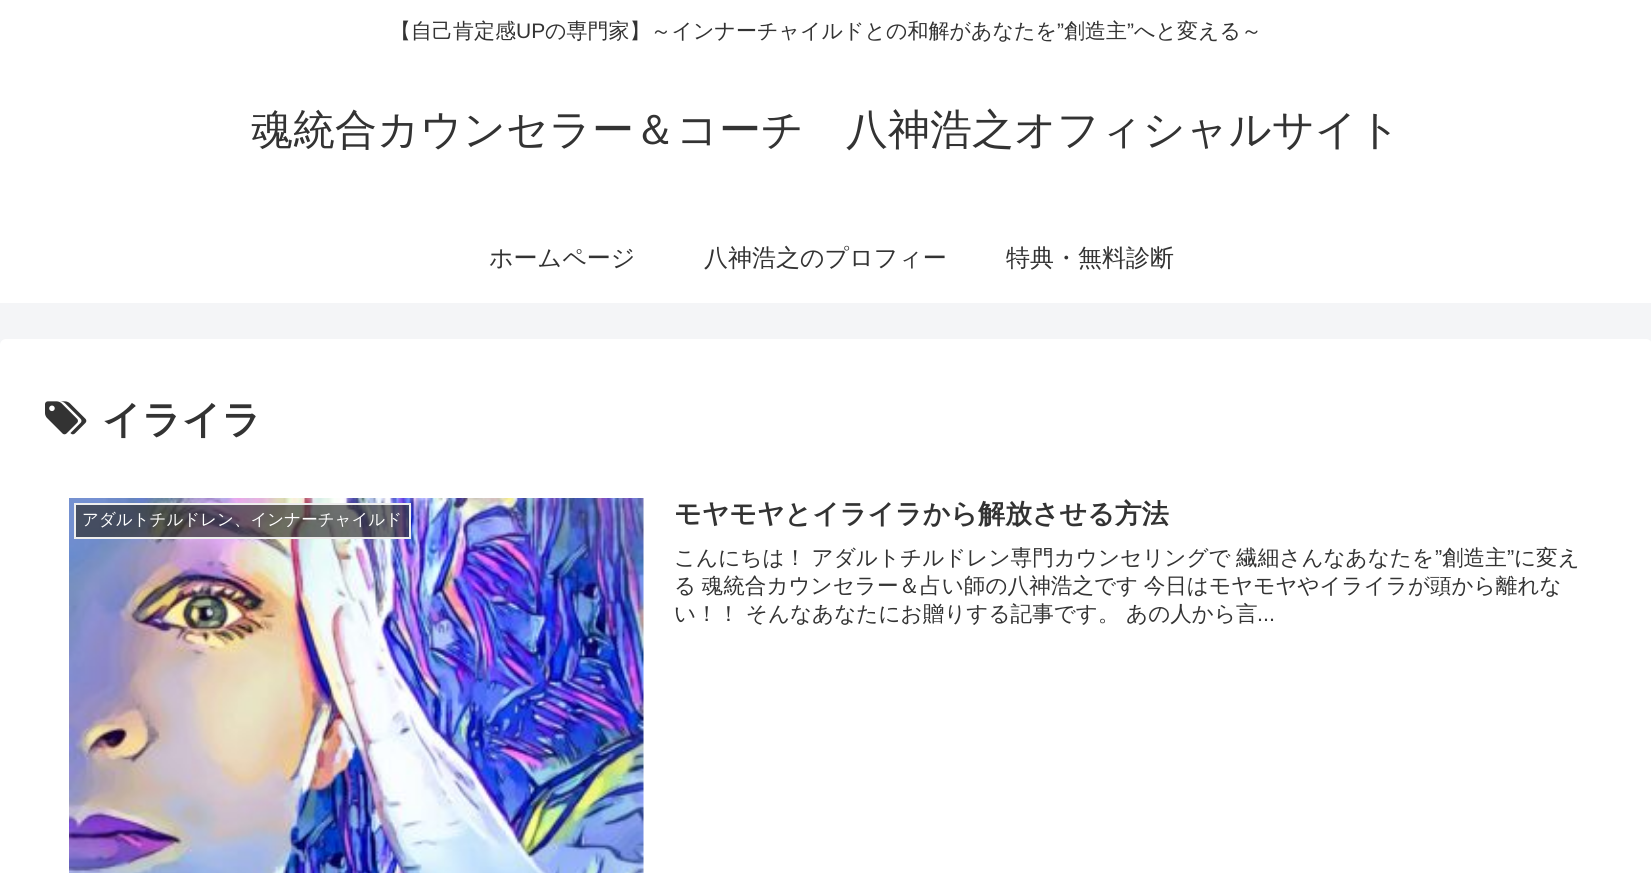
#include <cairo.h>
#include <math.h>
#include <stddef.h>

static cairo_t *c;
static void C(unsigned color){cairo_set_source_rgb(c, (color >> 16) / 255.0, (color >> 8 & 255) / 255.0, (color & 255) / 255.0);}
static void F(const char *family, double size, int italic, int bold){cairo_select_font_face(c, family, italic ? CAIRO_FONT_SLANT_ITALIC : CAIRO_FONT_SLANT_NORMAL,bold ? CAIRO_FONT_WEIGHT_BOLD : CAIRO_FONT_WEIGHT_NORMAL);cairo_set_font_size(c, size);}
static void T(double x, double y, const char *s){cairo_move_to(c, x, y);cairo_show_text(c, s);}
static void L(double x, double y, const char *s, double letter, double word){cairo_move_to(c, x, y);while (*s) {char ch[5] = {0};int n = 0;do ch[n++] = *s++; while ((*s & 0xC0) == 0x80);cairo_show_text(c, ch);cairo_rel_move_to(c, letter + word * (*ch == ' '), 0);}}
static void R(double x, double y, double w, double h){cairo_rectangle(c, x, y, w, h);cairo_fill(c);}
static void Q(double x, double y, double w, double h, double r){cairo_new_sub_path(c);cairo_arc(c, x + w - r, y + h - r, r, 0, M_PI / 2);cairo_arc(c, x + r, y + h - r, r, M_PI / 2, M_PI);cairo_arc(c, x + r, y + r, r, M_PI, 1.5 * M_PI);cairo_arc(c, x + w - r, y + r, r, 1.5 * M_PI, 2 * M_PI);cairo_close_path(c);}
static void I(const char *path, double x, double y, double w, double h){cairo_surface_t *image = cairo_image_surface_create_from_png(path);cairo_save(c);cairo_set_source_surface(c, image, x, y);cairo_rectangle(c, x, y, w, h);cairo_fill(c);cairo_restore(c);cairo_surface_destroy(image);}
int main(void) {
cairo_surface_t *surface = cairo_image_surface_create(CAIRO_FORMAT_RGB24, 1651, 873);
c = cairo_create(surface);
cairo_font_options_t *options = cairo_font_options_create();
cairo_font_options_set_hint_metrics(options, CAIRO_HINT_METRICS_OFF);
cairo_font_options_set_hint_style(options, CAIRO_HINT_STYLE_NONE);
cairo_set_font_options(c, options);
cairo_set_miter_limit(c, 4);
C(0xf4f5f7);
cairo_paint(c);
C(0xffffff);
R(0,0,1651,303);
F("WenQuanYi Zen Hei Medium",21,0,0);
C(0x333333);
T(390,38,"【自己肯定感");
F("Liberation Sans",21,0,0);
T(516,38,"UP");
F("WenQuanYi Zen Hei Medium",21,0,0);
T(545,38,"の専門家】～インナーチャイルドとの和解があなたを");
F("Liberation Sans",21,0,0);
T(1057,38,"”");
F("WenQuanYi Zen Hei Medium",21,0,0);
T(1064,38,"創造主");
F("Liberation Sans",21,0,0);
T(1127,38,"”");
F("WenQuanYi Zen Hei Medium",21,0,0);
T(1134,38,"へと変える～");
F("WenQuanYi Zen Hei Medium",42,0,0);
T(251,144,"魂統合カウンセラー＆コーチ　八神浩之オフィシャルサイト");
F("WenQuanYi Zen Hei Medium",24,0,0);
T(489,266,"ホームページ");
T(704,266,"八神浩之のプロフィー");
T(1006,266,"特典・無料診断");
C(0xffffff);
Q(0,339,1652,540,6);
cairo_fill(c);
I("1.png",45,401,42,34);
F("WenQuanYi Zen Hei",39,0,1);
C(0x333333);
T(102,433,"イライラ");
I("2.png",69,498,575,375);
cairo_set_source_rgba(c,0.2,0.2,0.2,0.7);
cairo_rectangle(c,75,504,335,34);
cairo_fill_preserve(c);
C(0xeeeeee);
cairo_stroke(c);
F("WenQuanYi Zen Hei Medium",16.5,0,0);
C(0xffffff);
T(82,525,"アダルトチルドレン、インナーチャイルド");
F("WenQuanYi Zen Hei",27,0,1);
C(0x333333);
T(674,523,"モヤモヤとイライラから解放させる方法");
F("WenQuanYi Zen Hei Medium",21.6,0,0);
L(674,565,"こんにちは！ アダルトチルドレン専門カウンセリングで 繊細さんなあなたを",0,-1);
F("Liberation Sans",21.6,0,0);
T(1435,565,"”");
F("WenQuanYi Zen Hei Medium",21.6,0,0);
T(1442,565,"創造主");
F("Liberation Sans",21.6,0,0);
T(1507,565,"”");
F("WenQuanYi Zen Hei Medium",21.6,0,0);
T(1514,565,"に変え");
L(674,593,"る 魂統合カウンセラー＆占い師の八神浩之です 今日はモヤモヤやイライラが頭から離れな",0,-1);
T(674,621,"い！！ そんなあなたにお贈りする記事です。 あの人から言");
F("Liberation Sans",21.6,0,0);
T(1257,621,"...");
cairo_surface_write_to_png(surface, "o.png");
cairo_font_options_destroy(options);
cairo_destroy(c);
cairo_surface_destroy(surface);
return 0;
}
